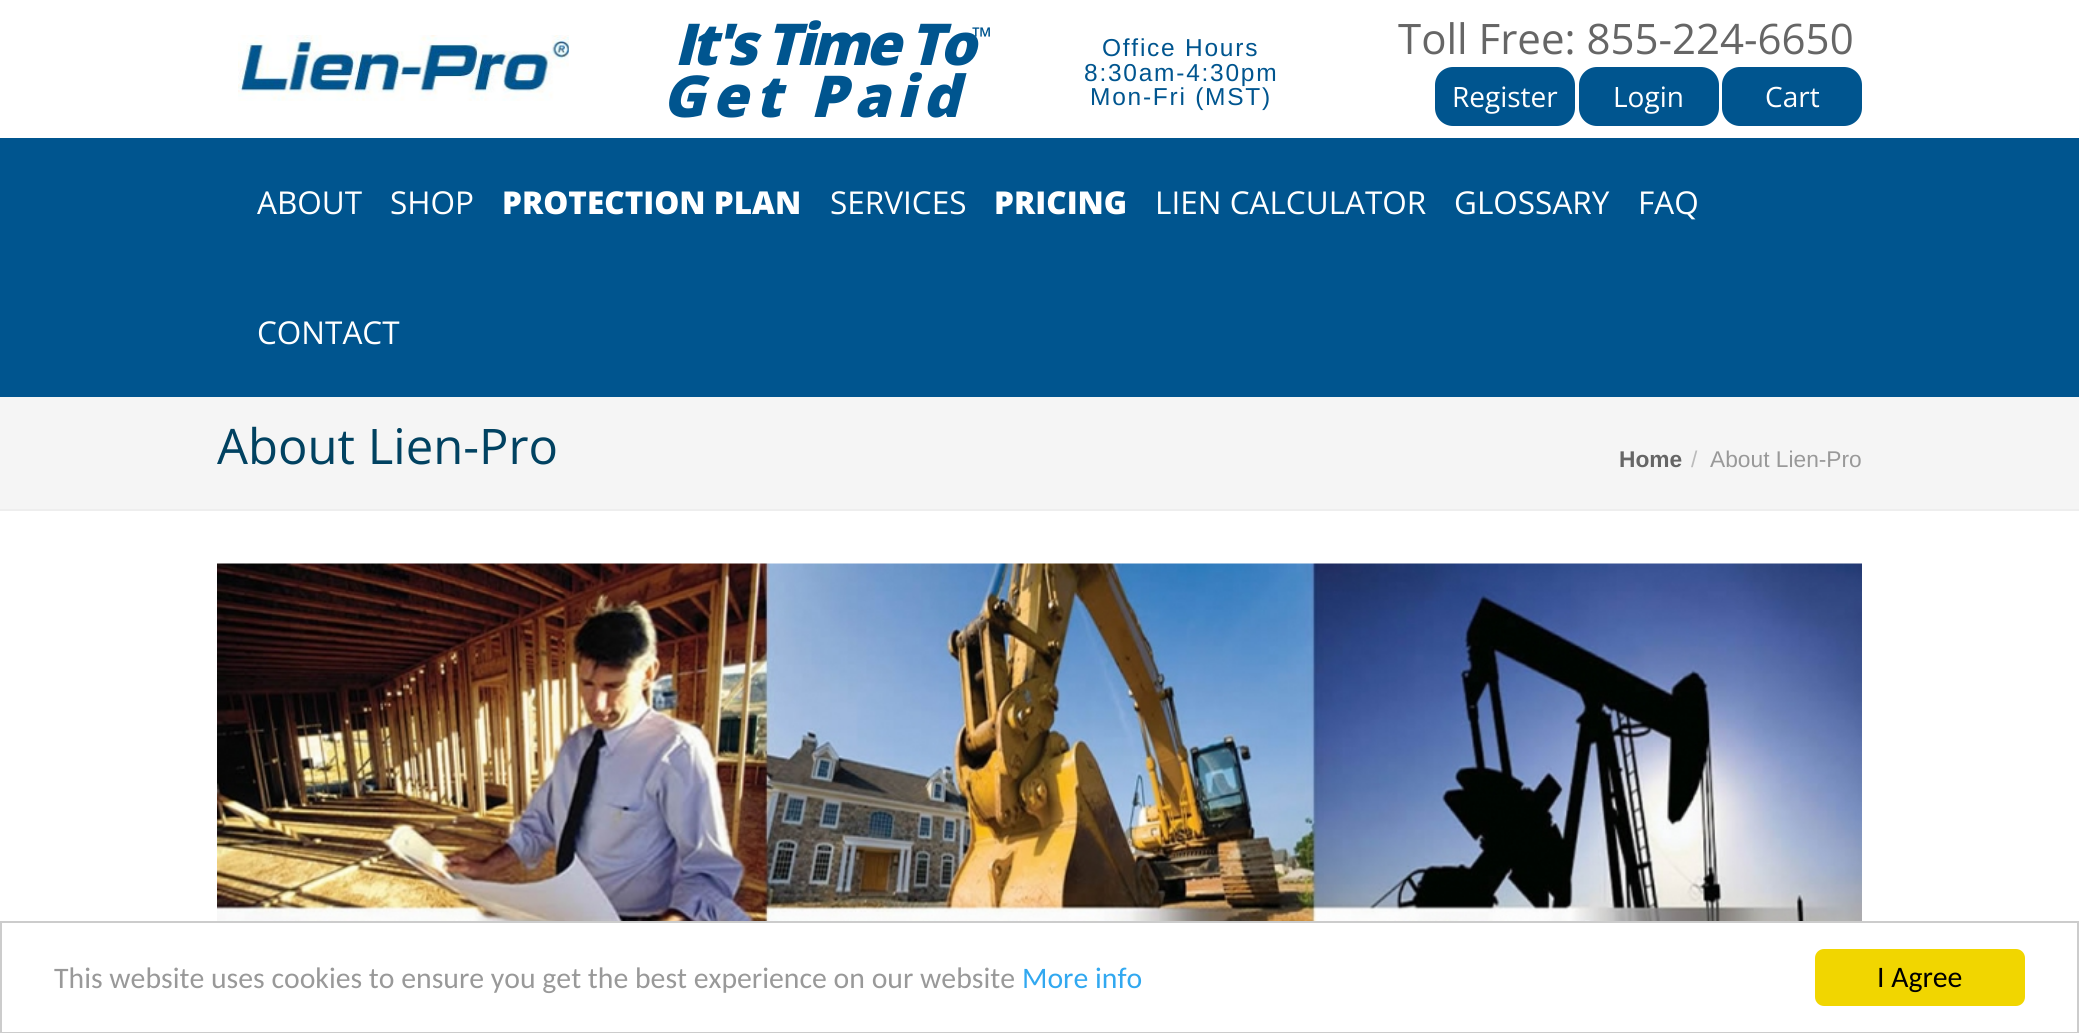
#include <cairo.h>
#include <math.h>
#include <stddef.h>

static cairo_t *c;
static void C(unsigned color){cairo_set_source_rgb(c, (color >> 16) / 255.0, (color >> 8 & 255) / 255.0, (color & 255) / 255.0);}
static void F(const char *family, double size, int italic, int bold){cairo_select_font_face(c, family, italic ? CAIRO_FONT_SLANT_ITALIC : CAIRO_FONT_SLANT_NORMAL,bold ? CAIRO_FONT_WEIGHT_BOLD : CAIRO_FONT_WEIGHT_NORMAL);cairo_set_font_size(c, size);}
static void T(double x, double y, const char *s){cairo_move_to(c, x, y);cairo_show_text(c, s);}
static void L(double x, double y, const char *s, double letter, double word){cairo_move_to(c, x, y);while (*s) {char ch[5] = {0};int n = 0;do ch[n++] = *s++; while ((*s & 0xC0) == 0x80);cairo_show_text(c, ch);cairo_rel_move_to(c, letter + word * (*ch == ' '), 0);}}
static void R(double x, double y, double w, double h){cairo_rectangle(c, x, y, w, h);cairo_fill(c);}
static void Q(double x, double y, double w, double h, double r){cairo_new_sub_path(c);cairo_arc(c, x + w - r, y + h - r, r, 0, M_PI / 2);cairo_arc(c, x + r, y + h - r, r, M_PI / 2, M_PI);cairo_arc(c, x + r, y + r, r, M_PI, 1.5 * M_PI);cairo_arc(c, x + w - r, y + r, r, 1.5 * M_PI, 2 * M_PI);cairo_close_path(c);}
static void I(const char *path, double x, double y, double w, double h){cairo_surface_t *image = cairo_image_surface_create_from_png(path);cairo_save(c);cairo_set_source_surface(c, image, x, y);cairo_rectangle(c, x, y, w, h);cairo_fill(c);cairo_restore(c);cairo_surface_destroy(image);}
int main(void) {
cairo_surface_t *surface = cairo_image_surface_create(CAIRO_FORMAT_RGB24, 2079, 1033);
c = cairo_create(surface);
cairo_font_options_t *options = cairo_font_options_create();
cairo_font_options_set_hint_metrics(options, CAIRO_HINT_METRICS_OFF);
cairo_font_options_set_hint_style(options, CAIRO_HINT_STYLE_NONE);
cairo_set_font_options(c, options);
cairo_set_miter_limit(c, 4);
C(0xffffff);
cairo_paint(c);
I("1.png",238,35,331,66);
F("Open Sans ExtraBold",57.75,1,0);
C(0x00558f);
L(674,65,"It's Time To",-3.5,0);
L(662,117,"Get Paid",7,0);
F("Open Sans",26,0,0);
T(972,46,"™");
F("Liberation Sans",24.5,0,0);
L(1102,56,"Office Hours",1.75,0);
L(1084,81,"8:30am-4:30pm",1.75,0);
L(1090,105,"Mon-Fri (MST)",1.75,0);
F("Open Sans",42,0,0);
C(0x666666);
T(1398,54,"Toll Free: 855-224-6650");
C(0x00558f);
Q(1435,67,140,59,18);
cairo_fill(c);
F("Open Sans",28,0,0);
C(0xffffff);
T(1452,107,"Register");
C(0x00558f);
Q(1579,67,140,59,18);
cairo_fill(c);
C(0xffffff);
T(1613,107,"Login");
C(0x00558f);
Q(1722,67,140,59,18);
cairo_fill(c);
C(0xffffff);
T(1765,107,"Cart");
C(0x00558f);
R(0,138,2079,259);
F("Open Sans",31.5,0,0);
C(0xffffff);
T(257,214,"ABOUT");
T(390,214,"SHOP");
F("Open Sans ExtraBold",31.5,0,0);
T(502,214,"PROTECTION PLAN");
F("Open Sans",31.5,0,0);
T(830,214,"SERVICES");
F("Open Sans ExtraBold",31.5,0,0);
T(994,214,"PRICING");
F("Open Sans",31.5,0,0);
T(1155,214,"LIEN CALCULATOR");
T(1454,214,"GLOSSARY");
T(1638,214,"FAQ");
T(257,344,"CONTACT");
C(0xf5f5f5);
R(0,397,2079,112);
C(0xeeeeee);
R(0,509,2079,2);
F("Open Sans",49,0,0);
C(0x014261);
T(217,464,"About Lien-Pro");
F("Liberation Sans",22.75,0,1);
C(0x666666);
T(1619,467,"Home");
F("Liberation Sans",22.75,0,0);
C(0xbbbbbb);
T(1691,467,"/");
C(0x999999);
T(1710,467,"About Lien-Pro");
I("2.png",217,563,1645,358);
cairo_rectangle(c,1,922,2077,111);
C(0xcccccc);
cairo_stroke(c);
F("Carlito",29.75,0,0);
C(0x999999);
T(54,988,"This website uses cookies to ensure you get the best experience on our website");
C(0x31a8f0);
T(1022,988,"More info");
C(0xf1d600);
Q(1815,949,210,57,9);
cairo_fill(c);
C(0x000000);
T(1877,987,"I Agree");
cairo_surface_write_to_png(surface, "o.png");
cairo_font_options_destroy(options);
cairo_destroy(c);
cairo_surface_destroy(surface);
return 0;
}
